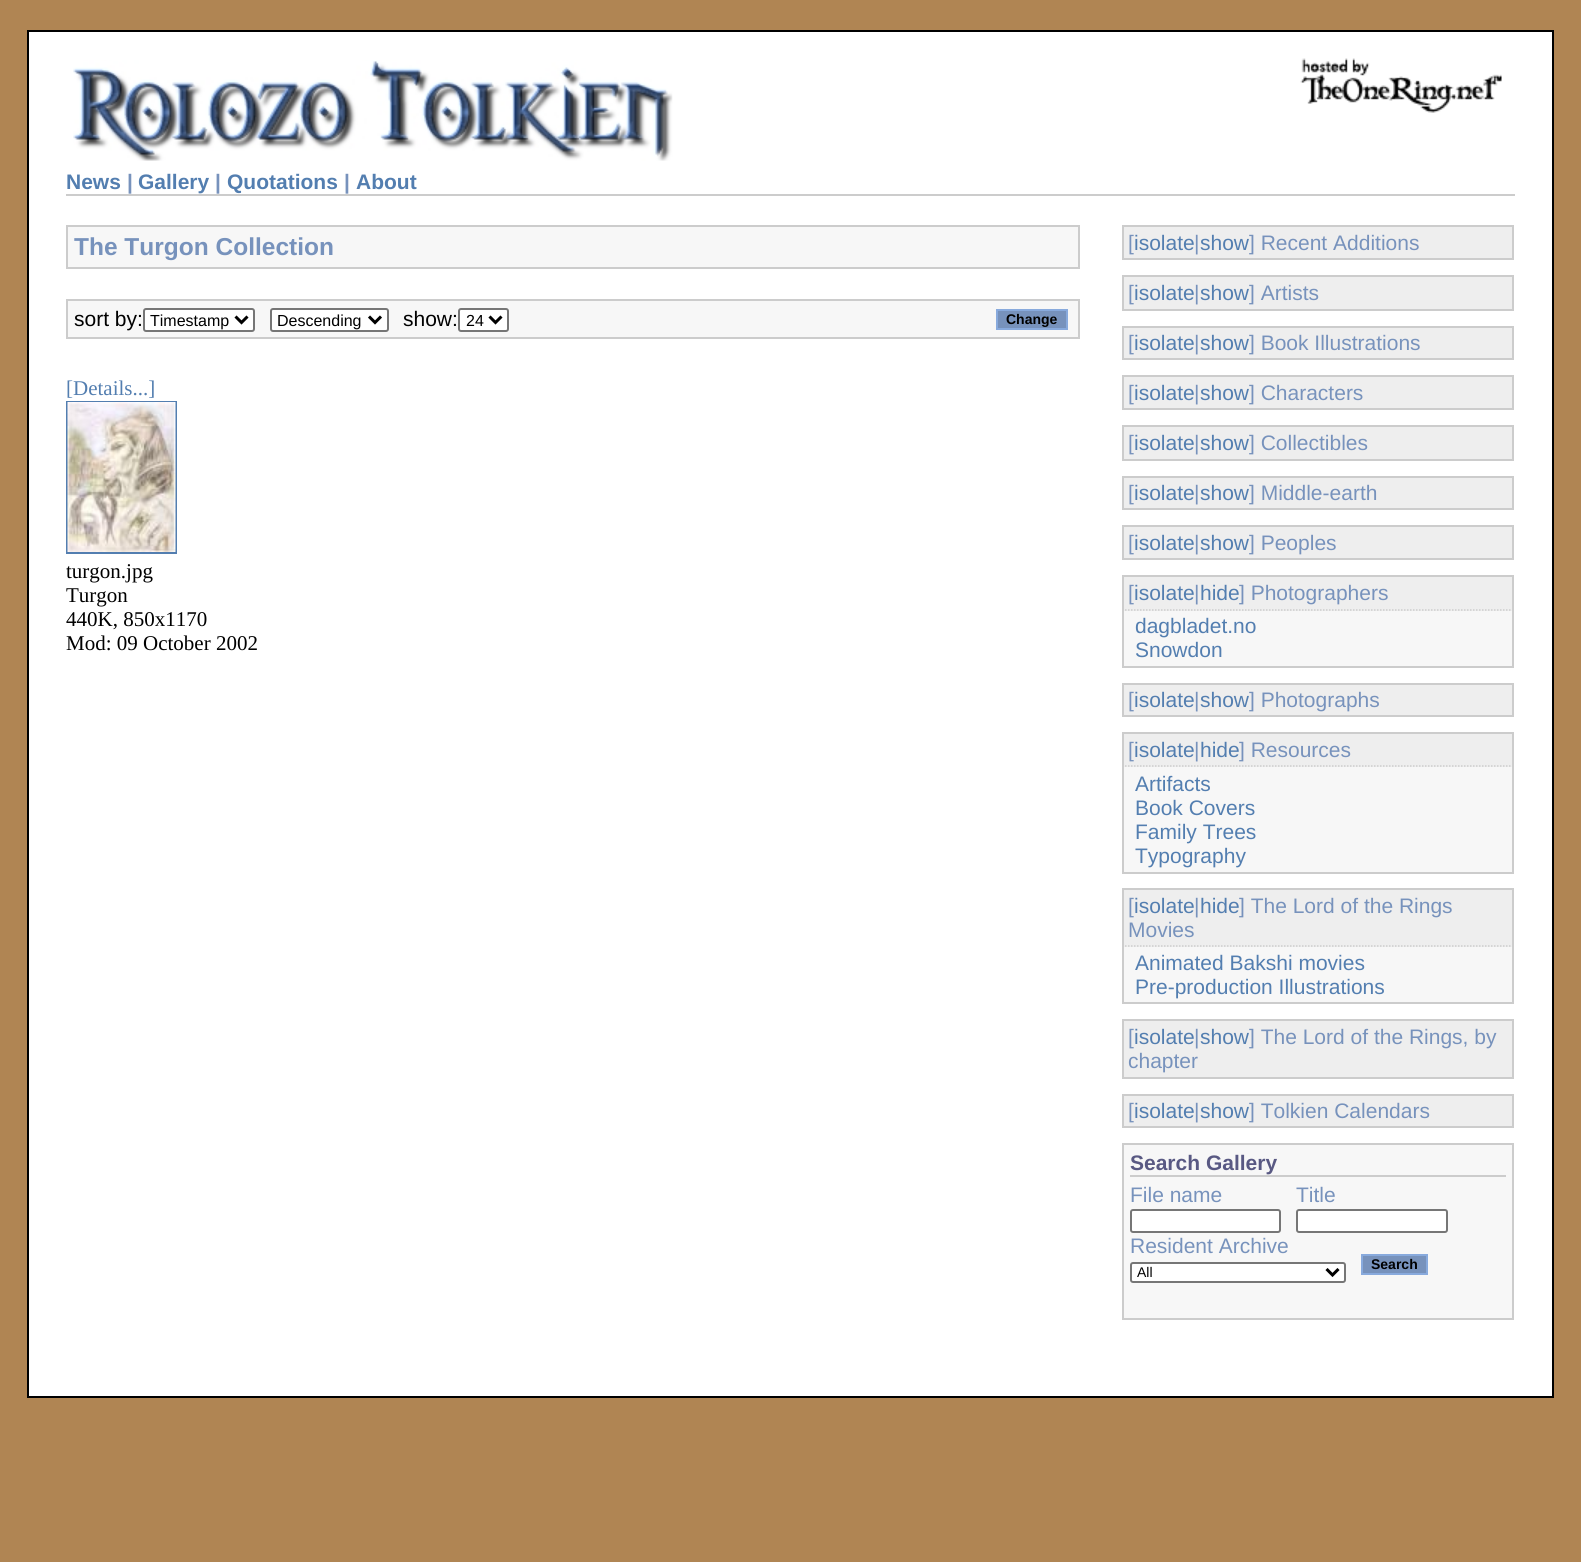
#include <cairo.h>
#include <math.h>
#include <stddef.h>

static cairo_t *c;
static void C(unsigned color){cairo_set_source_rgb(c, (color >> 16) / 255.0, (color >> 8 & 255) / 255.0, (color & 255) / 255.0);}
static void F(const char *family, double size, int italic, int bold){cairo_select_font_face(c, family, italic ? CAIRO_FONT_SLANT_ITALIC : CAIRO_FONT_SLANT_NORMAL,bold ? CAIRO_FONT_WEIGHT_BOLD : CAIRO_FONT_WEIGHT_NORMAL);cairo_set_font_size(c, size);}
static void T(double x, double y, const char *s){cairo_move_to(c, x, y);cairo_show_text(c, s);}
static void R(double x, double y, double w, double h){cairo_rectangle(c, x, y, w, h);cairo_fill(c);}
static void Q(double x, double y, double w, double h, double r){cairo_new_sub_path(c);cairo_arc(c, x + w - r, y + h - r, r, 0, M_PI / 2);cairo_arc(c, x + r, y + h - r, r, M_PI / 2, M_PI);cairo_arc(c, x + r, y + r, r, M_PI, 1.5 * M_PI);cairo_arc(c, x + w - r, y + r, r, 1.5 * M_PI, 2 * M_PI);cairo_close_path(c);}
static void I(const char *path, double x, double y, double w, double h){cairo_surface_t *image = cairo_image_surface_create_from_png(path);cairo_save(c);cairo_set_source_surface(c, image, x, y);cairo_rectangle(c, x, y, w, h);cairo_fill(c);cairo_restore(c);cairo_surface_destroy(image);}
int main(void) {
cairo_surface_t *surface = cairo_image_surface_create(CAIRO_FORMAT_RGB24, 1581, 1562);
c = cairo_create(surface);
cairo_font_options_t *options = cairo_font_options_create();
cairo_font_options_set_hint_metrics(options, CAIRO_HINT_METRICS_OFF);
cairo_font_options_set_hint_style(options, CAIRO_HINT_STYLE_NONE);
cairo_set_font_options(c, options);
cairo_set_miter_limit(c, 4);
C(0xb08553);
cairo_paint(c);
C(0xffffff);
cairo_rectangle(c,28,31,1525,1366);
cairo_fill_preserve(c);
C(0x000000);
cairo_stroke(c);
I("1.png",73,60,600,101);
I("2.png",1300,58,202,55);
C(0xcccccc);
R(66,194,1449,2);
F("Liberation Sans",21,0,1);
C(0x537eb0);
T(66,189,"News");
C(0x7792bc);
T(127,189,"|");
C(0x537eb0);
T(138,189,"Gallery");
C(0x7792bc);
T(215,189,"|");
C(0x537eb0);
T(227,189,"Quotations");
C(0x7792bc);
T(344,189,"|");
C(0x537eb0);
T(356,189,"About");
C(0xf7f7f7);
cairo_rectangle(c,67,226,1012,42);
cairo_fill_preserve(c);
C(0xcccccc);
cairo_stroke(c);
F("Liberation Sans",24.5,0,1);
C(0x7792bc);
T(74,255,"The Turgon Collection");
C(0xf7f7f7);
cairo_rectangle(c,67,300,1012,38);
cairo_fill_preserve(c);
C(0xcccccc);
cairo_stroke(c);
F("Liberation Sans",21,0,0);
C(0x000000);
T(74,326,"sort by:");
C(0xffffff);
Q(144,309,110,22,2);
cairo_fill_preserve(c);
C(0x767676);
cairo_stroke(c);
cairo_new_path(c);
cairo_move_to(c,235.5,316.5);
cairo_line_to(c,241.5,322.5);
cairo_line_to(c,247.5,316.5);
C(0x000000);
cairo_set_line_width(c,3);
cairo_stroke(c);
F("Liberation Sans",16,0,0);
T(150,326,"Timestamp");
C(0xffffff);
Q(271,309,117,22,2);
cairo_fill_preserve(c);
C(0x767676);
cairo_set_line_width(c,2);
cairo_stroke(c);
cairo_new_path(c);
cairo_move_to(c,369,316.5);
cairo_line_to(c,375,322.5);
cairo_line_to(c,381,316.5);
C(0x000000);
cairo_set_line_width(c,3);
cairo_stroke(c);
T(277,326,"Descending");
F("Liberation Sans",21,0,0);
T(403,326,"show:");
C(0xffffff);
Q(459,309,49,22,2);
cairo_fill_preserve(c);
C(0x767676);
cairo_set_line_width(c,2);
cairo_stroke(c);
cairo_new_path(c);
cairo_move_to(c,489.5,316.5);
cairo_line_to(c,495.5,322.5);
cairo_line_to(c,501.5,316.5);
C(0x000000);
cairo_set_line_width(c,3);
cairo_stroke(c);
F("Liberation Sans",16,0,0);
T(466,326,"24");
C(0x7792bc);
cairo_rectangle(c,997,310,70,19);
cairo_fill_preserve(c);
C(0x88aadd);
cairo_set_line_width(c,2);
cairo_stroke(c);
F("Liberation Sans",14,0,1);
C(0x000000);
T(1006,324,"Change");
F("Liberation Serif",21,0,0);
C(0x537eb0);
T(66,395,"[Details...]");
cairo_rectangle(c,67,402,109,151);
cairo_stroke(c);
I("3.png",67,402,109,150);
C(0x000000);
T(66,578,"turgon.jpg");
T(66,602,"Turgon");
T(66,626,"440K, 850x1170");
T(66,650,"Mod: 09 October 2002");
C(0xeeeeee);
cairo_rectangle(c,1123,226,390,33);
cairo_fill_preserve(c);
C(0xcccccc);
cairo_stroke(c);
F("Liberation Sans",21,0,0);
C(0x7792bc);
T(1128,250,"[");
C(0x537eb0);
T(1134,250,"isolate");
C(0x7792bc);
T(1194,250,"|");
C(0x537eb0);
T(1200,250,"show");
C(0x7792bc);
T(1249,250,"] Recent Additions");
C(0xeeeeee);
cairo_rectangle(c,1123,276,390,34);
cairo_fill_preserve(c);
C(0xcccccc);
cairo_stroke(c);
C(0x7792bc);
T(1128,300,"[");
C(0x537eb0);
T(1134,300,"isolate");
C(0x7792bc);
T(1194,300,"|");
C(0x537eb0);
T(1200,300,"show");
C(0x7792bc);
T(1249,300,"] Artists");
C(0xeeeeee);
cairo_rectangle(c,1123,327,390,32);
cairo_fill_preserve(c);
C(0xcccccc);
cairo_stroke(c);
C(0x7792bc);
T(1128,350,"[");
C(0x537eb0);
T(1134,350,"isolate");
C(0x7792bc);
T(1194,350,"|");
C(0x537eb0);
T(1200,350,"show");
C(0x7792bc);
T(1249,350,"] Book Illustrations");
C(0xeeeeee);
cairo_rectangle(c,1123,376,390,33);
cairo_fill_preserve(c);
C(0xcccccc);
cairo_stroke(c);
C(0x7792bc);
T(1128,400,"[");
C(0x537eb0);
T(1134,400,"isolate");
C(0x7792bc);
T(1194,400,"|");
C(0x537eb0);
T(1200,400,"show");
C(0x7792bc);
T(1249,400,"] Characters");
C(0xeeeeee);
cairo_rectangle(c,1123,426,390,34);
cairo_fill_preserve(c);
C(0xcccccc);
cairo_stroke(c);
C(0x7792bc);
T(1128,450,"[");
C(0x537eb0);
T(1134,450,"isolate");
C(0x7792bc);
T(1194,450,"|");
C(0x537eb0);
T(1200,450,"show");
C(0x7792bc);
T(1249,450,"] Collectibles");
C(0xeeeeee);
cairo_rectangle(c,1123,477,390,32);
cairo_fill_preserve(c);
C(0xcccccc);
cairo_stroke(c);
C(0x7792bc);
T(1128,500,"[");
C(0x537eb0);
T(1134,500,"isolate");
C(0x7792bc);
T(1194,500,"|");
C(0x537eb0);
T(1200,500,"show");
C(0x7792bc);
T(1249,500,"] Middle-earth");
C(0xeeeeee);
cairo_rectangle(c,1123,526,390,33);
cairo_fill_preserve(c);
C(0xcccccc);
cairo_stroke(c);
C(0x7792bc);
T(1128,550,"[");
C(0x537eb0);
T(1134,550,"isolate");
C(0x7792bc);
T(1194,550,"|");
C(0x537eb0);
T(1200,550,"show");
C(0x7792bc);
T(1249,550,"] Peoples");
C(0xeeeeee);
R(1124,577,388,34);
C(0xcccccc);
R(1122,575,392,2);
R(1512,575,2,93);
cairo_new_path(c);
cairo_move_to(c,1122,610);
cairo_line_to(c,1513.5,610);
cairo_set_line_width(c,1.5);
cairo_set_dash(c,(double[]){1.5,1.5},2,0);
cairo_stroke(c);
R(1122,575,2,36);
C(0x7792bc);
T(1128,600,"[");
C(0x537eb0);
T(1134,600,"isolate");
C(0x7792bc);
T(1194,600,"|");
C(0x537eb0);
T(1200,600,"hide");
C(0x7792bc);
T(1239,600,"] Photographers");
C(0xf7f7f7);
R(1124,611,388,55);
C(0xcccccc);
R(1122,666,392,2);
R(1122,611,2,57);
C(0x537eb0);
T(1135,633,"dagbladet.no");
T(1135,657,"Snowdon");
C(0xeeeeee);
cairo_rectangle(c,1123,684,390,32);
cairo_fill_preserve(c);
C(0xcccccc);
cairo_set_line_width(c,2);
cairo_set_dash(c,NULL,0,0);
cairo_stroke(c);
C(0x7792bc);
T(1128,707,"[");
C(0x537eb0);
T(1134,707,"isolate");
C(0x7792bc);
T(1194,707,"|");
C(0x537eb0);
T(1200,707,"show");
C(0x7792bc);
T(1249,707,"] Photographs");
C(0xeeeeee);
R(1124,734,388,33);
C(0xcccccc);
R(1122,732,392,2);
R(1512,732,2,141);
cairo_new_path(c);
cairo_move_to(c,1122,766);
cairo_line_to(c,1513.5,766);
cairo_set_line_width(c,1.5);
cairo_set_dash(c,(double[]){1.5,1.5},2,0);
cairo_stroke(c);
R(1122,732,2,35);
C(0x7792bc);
T(1128,757,"[");
C(0x537eb0);
T(1134,757,"isolate");
C(0x7792bc);
T(1194,757,"|");
C(0x537eb0);
T(1200,757,"hide");
C(0x7792bc);
T(1239,757,"] Resources");
C(0xf7f7f7);
R(1124,767,388,105);
C(0xcccccc);
R(1122,872,392,2);
R(1122,767,2,106);
C(0x537eb0);
T(1135,791,"Artifacts");
T(1135,815,"Book Covers");
T(1135,839,"Family Trees");
T(1135,863,"Typography");
C(0xeeeeee);
R(1124,890,388,57);
C(0xcccccc);
R(1122,888,392,2);
R(1512,888,2,116);
cairo_new_path(c);
cairo_move_to(c,1122,946);
cairo_line_to(c,1513.5,946);
cairo_stroke(c);
R(1122,888,2,59);
C(0x7792bc);
T(1128,913,"[");
C(0x537eb0);
T(1134,913,"isolate");
C(0x7792bc);
T(1194,913,"|");
C(0x537eb0);
T(1200,913,"hide");
C(0x7792bc);
T(1239,913,"] The Lord of the Rings");
T(1128,937,"Movies");
C(0xf7f7f7);
R(1124,947,388,55);
C(0xcccccc);
R(1122,1002,392,2);
R(1122,947,2,57);
C(0x537eb0);
T(1135,970,"Animated Bakshi movies");
T(1135,994,"Pre-production Illustrations");
C(0xeeeeee);
cairo_rectangle(c,1123,1020,390,58);
cairo_fill_preserve(c);
C(0xcccccc);
cairo_set_line_width(c,2);
cairo_set_dash(c,NULL,0,0);
cairo_stroke(c);
C(0x7792bc);
T(1128,1044,"[");
C(0x537eb0);
T(1134,1044,"isolate");
C(0x7792bc);
T(1194,1044,"|");
C(0x537eb0);
T(1200,1044,"show");
C(0x7792bc);
T(1249,1044,"] The Lord of the Rings, by");
T(1128,1068,"chapter");
C(0xeeeeee);
cairo_rectangle(c,1123,1095,390,32);
cairo_fill_preserve(c);
C(0xcccccc);
cairo_stroke(c);
C(0x7792bc);
T(1128,1118,"[");
C(0x537eb0);
T(1134,1118,"isolate");
C(0x7792bc);
T(1194,1118,"|");
C(0x537eb0);
T(1200,1118,"show");
C(0x7792bc);
T(1249,1118,"] Tolkien Calendars");
C(0xf7f7f7);
cairo_rectangle(c,1123,1144,390,175);
cairo_fill_preserve(c);
C(0xcccccc);
cairo_stroke(c);
R(1130,1175,376,2);
F("Liberation Sans",21,0,1);
C(0x595983);
T(1130,1170,"Search Gallery");
F("Liberation Sans",21,0,0);
C(0x7792bc);
T(1130,1202,"File name");
C(0xffffff);
Q(1131,1210,149,22,2);
cairo_fill_preserve(c);
C(0x767676);
cairo_stroke(c);
C(0x7792bc);
T(1296,1202,"Title");
C(0xffffff);
Q(1297,1210,150,22,2);
cairo_fill_preserve(c);
C(0x767676);
cairo_stroke(c);
C(0x7792bc);
T(1130,1253,"Resident Archive");
C(0xffffff);
Q(1131,1263,214,19,2);
cairo_fill_preserve(c);
C(0x767676);
cairo_stroke(c);
cairo_new_path(c);
cairo_move_to(c,1326.5,1269);
cairo_line_to(c,1332.5,1275);
cairo_line_to(c,1338.5,1269);
C(0x000000);
cairo_set_line_width(c,3);
cairo_stroke(c);
F("Liberation Sans",14,0,0);
T(1137,1277,"All");
C(0x7792bc);
cairo_rectangle(c,1362,1255,65,19);
cairo_fill_preserve(c);
C(0x88aadd);
cairo_set_line_width(c,2);
cairo_stroke(c);
F("Liberation Sans",14,0,1);
C(0x000000);
T(1371,1269,"Search");
cairo_surface_write_to_png(surface, "o.png");
cairo_font_options_destroy(options);
cairo_destroy(c);
cairo_surface_destroy(surface);
return 0;
}
